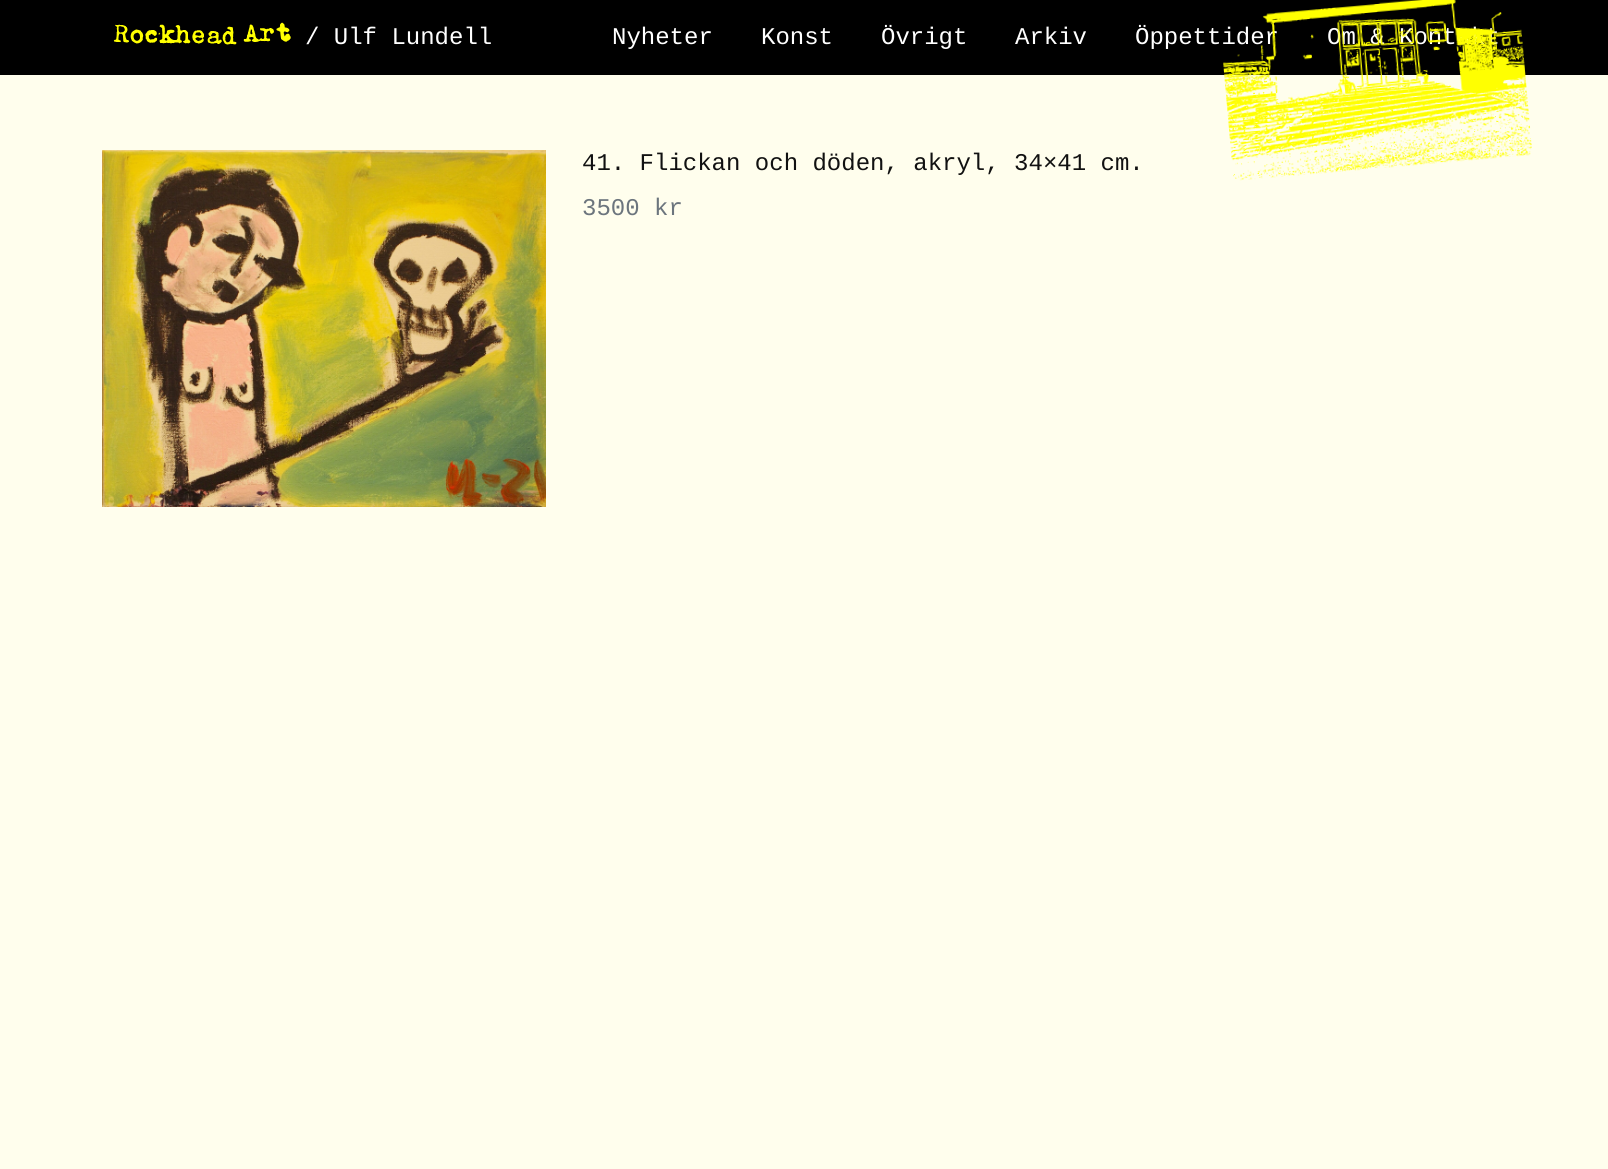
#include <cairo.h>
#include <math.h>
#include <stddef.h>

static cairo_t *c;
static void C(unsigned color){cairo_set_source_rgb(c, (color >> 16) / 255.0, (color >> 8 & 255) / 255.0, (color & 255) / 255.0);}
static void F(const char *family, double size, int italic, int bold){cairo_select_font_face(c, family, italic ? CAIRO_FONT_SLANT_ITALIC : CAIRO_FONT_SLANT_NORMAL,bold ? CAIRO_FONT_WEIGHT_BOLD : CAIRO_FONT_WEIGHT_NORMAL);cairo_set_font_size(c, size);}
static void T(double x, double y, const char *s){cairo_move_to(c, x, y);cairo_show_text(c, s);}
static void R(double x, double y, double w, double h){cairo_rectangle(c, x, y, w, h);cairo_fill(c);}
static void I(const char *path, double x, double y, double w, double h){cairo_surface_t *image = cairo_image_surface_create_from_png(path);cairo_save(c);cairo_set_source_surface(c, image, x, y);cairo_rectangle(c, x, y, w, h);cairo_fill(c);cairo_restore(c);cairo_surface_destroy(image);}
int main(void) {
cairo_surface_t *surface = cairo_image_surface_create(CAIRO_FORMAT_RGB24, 1608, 1169);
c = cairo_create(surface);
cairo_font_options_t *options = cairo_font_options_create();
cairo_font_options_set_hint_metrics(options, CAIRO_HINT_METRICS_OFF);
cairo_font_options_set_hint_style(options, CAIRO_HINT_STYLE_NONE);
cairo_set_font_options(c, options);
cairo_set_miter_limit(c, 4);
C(0xfffeed);
cairo_paint(c);
C(0x000000);
R(0,0,1608,75);
F("Liberation Mono",24,0,0);
C(0xffffff);
T(1135,44,"Öppettider");
T(1327,44,"Om & Kontakt");
I("1.png",1223,0,309,181);
I("2.png",113,22,178,23);
T(305,44,"/ Ulf Lundell");
T(612,44,"Nyheter");
T(761,44,"Konst");
T(881,44,"Övrigt");
T(1015,44,"Arkiv");
I("3.png",102,150,444,357);
C(0x111111);
T(582,170,"41. Flickan och döden, akryl, 34×41 cm.");
C(0x6c757d);
T(582,215,"3500 kr");
cairo_surface_write_to_png(surface, "o.png");
cairo_font_options_destroy(options);
cairo_destroy(c);
cairo_surface_destroy(surface);
return 0;
}
